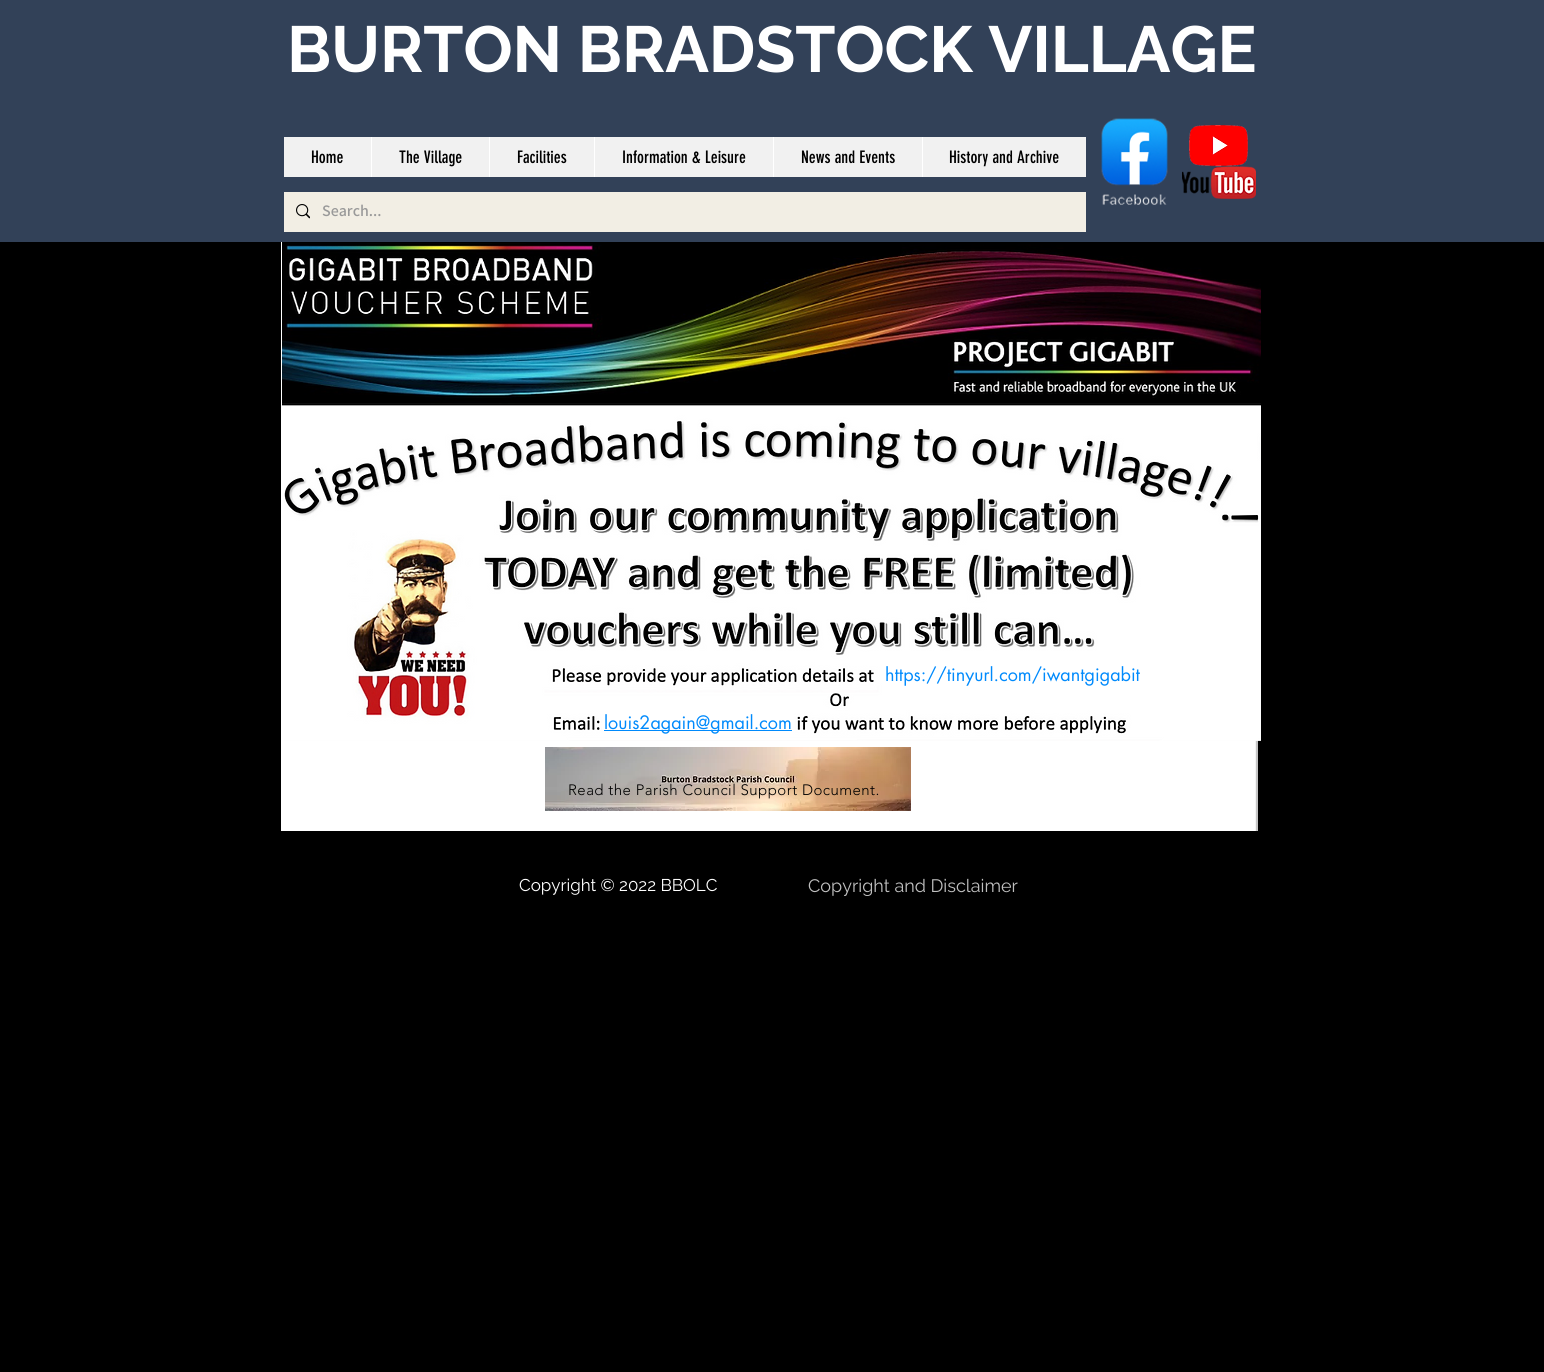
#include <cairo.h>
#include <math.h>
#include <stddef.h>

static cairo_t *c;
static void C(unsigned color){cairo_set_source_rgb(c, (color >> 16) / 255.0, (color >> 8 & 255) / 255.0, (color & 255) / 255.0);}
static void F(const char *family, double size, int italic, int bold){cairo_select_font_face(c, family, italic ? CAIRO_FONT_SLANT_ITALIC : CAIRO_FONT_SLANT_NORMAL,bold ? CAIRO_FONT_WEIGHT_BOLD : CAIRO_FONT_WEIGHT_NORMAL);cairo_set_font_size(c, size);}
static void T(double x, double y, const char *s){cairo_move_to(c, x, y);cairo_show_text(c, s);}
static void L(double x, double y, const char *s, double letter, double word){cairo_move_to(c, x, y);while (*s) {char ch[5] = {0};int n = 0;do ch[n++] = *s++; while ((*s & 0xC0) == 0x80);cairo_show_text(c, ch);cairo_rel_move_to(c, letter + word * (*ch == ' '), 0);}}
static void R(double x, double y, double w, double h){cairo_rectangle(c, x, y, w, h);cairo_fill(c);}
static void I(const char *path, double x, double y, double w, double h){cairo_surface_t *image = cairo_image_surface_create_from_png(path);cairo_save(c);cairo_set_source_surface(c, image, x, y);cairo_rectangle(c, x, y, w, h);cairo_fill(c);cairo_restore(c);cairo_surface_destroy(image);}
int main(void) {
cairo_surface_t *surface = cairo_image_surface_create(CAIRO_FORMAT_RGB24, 1544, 1372);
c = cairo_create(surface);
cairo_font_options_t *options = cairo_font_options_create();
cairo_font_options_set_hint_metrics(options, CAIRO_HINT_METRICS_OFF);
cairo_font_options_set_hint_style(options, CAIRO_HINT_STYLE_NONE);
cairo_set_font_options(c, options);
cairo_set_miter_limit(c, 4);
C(0x000000);
cairo_paint(c);
C(0x324158);
R(0,0,1544,242);
F("Raleway",65,0,1);
C(0xffffff);
T(287,72,"BURTON BRADSTOCK VILLAGE");
C(0xf1f1f1);
R(284,137,802,40);
F("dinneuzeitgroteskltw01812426",17,0,0);
C(0x000000);
T(311,163,"Home");
C(0xffffff);
R(371,137,1,40);
C(0x000000);
T(399,163,"The Village");
C(0xffffff);
R(489,137,1,40);
C(0x000000);
T(517,163,"Facilities");
C(0xffffff);
R(594,137,1,40);
C(0x000000);
T(622,163,"Information & Leisure");
C(0xffffff);
R(773,137,1,40);
C(0x000000);
T(801,163,"News and Events");
C(0xffffff);
R(922,137,1,40);
C(0x000000);
T(949,163,"History and Archive");
I("1.png",1101,118,67,87);
I("2.png",1182,125,74,74);
C(0xf2eee4);
R(284,192,802,40);
I("3.png",296,204,14,15);
F("Assistant SemiBold",16,0,0);
C(0x999999);
T(322,216,"Search...");
I("4.png",281,242,977,589);
I("5.png",282,242,979,169);
I("6.png",284,411,977,330);
F("futura",18,0,0);
C(0x008afc);
T(885,681,"https://tinyurl.com/iwantgigabit");
R(604,730,188,1);
T(604,729,"louis2again@gmail.com");
I("7.png",545,747,366,64);
F("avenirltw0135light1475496 Light",15,0,0);
C(0x000000);
L(568,795,"Read the Parish Council Support Document.",.45,0);
F("Raleway",17,0,0);
C(0xffffff);
T(519,891,"Copyright © 2022 BBOLC");
F("Raleway",18,0,0);
C(0xbfbfbf);
T(808,892,"Copyright and Disclaimer");
cairo_surface_write_to_png(surface, "o.png");
cairo_font_options_destroy(options);
cairo_destroy(c);
cairo_surface_destroy(surface);
return 0;
}
